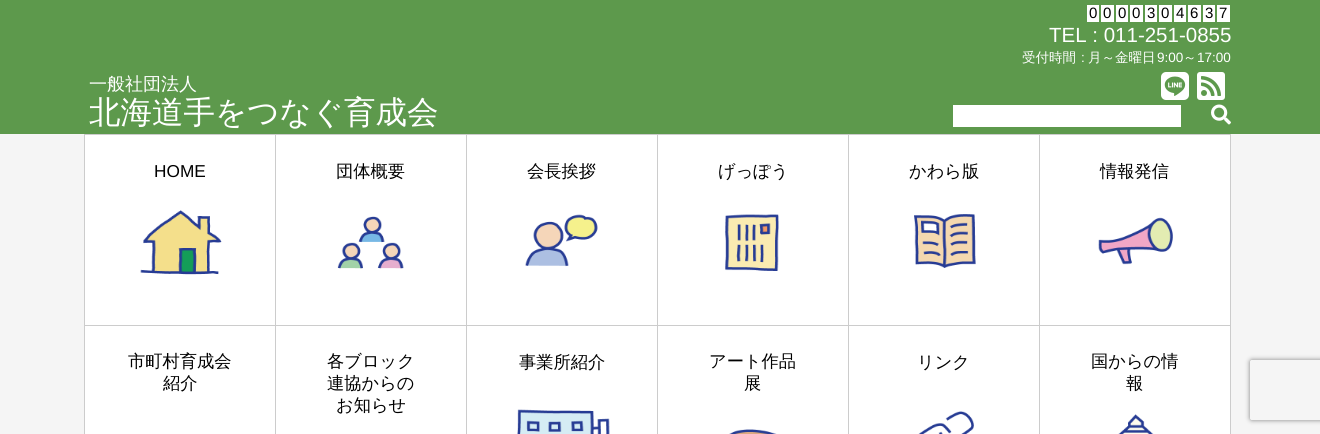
#include <cairo.h>
#include <math.h>
#include <stddef.h>

static cairo_t *c;
static void C(unsigned color){cairo_set_source_rgb(c, (color >> 16) / 255.0, (color >> 8 & 255) / 255.0, (color & 255) / 255.0);}
static void F(const char *family, double size, int italic, int bold){cairo_select_font_face(c, family, italic ? CAIRO_FONT_SLANT_ITALIC : CAIRO_FONT_SLANT_NORMAL,bold ? CAIRO_FONT_WEIGHT_BOLD : CAIRO_FONT_WEIGHT_NORMAL);cairo_set_font_size(c, size);}
static void T(double x, double y, const char *s){cairo_move_to(c, x, y);cairo_show_text(c, s);}
static void R(double x, double y, double w, double h){cairo_rectangle(c, x, y, w, h);cairo_fill(c);}
static void Q(double x, double y, double w, double h, double r){cairo_new_sub_path(c);cairo_arc(c, x + w - r, y + h - r, r, 0, M_PI / 2);cairo_arc(c, x + r, y + h - r, r, M_PI / 2, M_PI);cairo_arc(c, x + r, y + r, r, M_PI, 1.5 * M_PI);cairo_arc(c, x + w - r, y + r, r, 1.5 * M_PI, 2 * M_PI);cairo_close_path(c);}
static void S(double x, double y, double w, double h, double r, double blur, double alpha){cairo_push_group_with_content(c, CAIRO_CONTENT_ALPHA);cairo_set_operator(c, CAIRO_OPERATOR_SOURCE);for (int i = 15; i >= -15 && fmin(w, h) + blur * i / 3 > 0; i -= 2) {double e = blur * i / 6;cairo_set_source_rgba(c, 0, 0, 0, alpha * erfc((i - 1) / 8.5) / 2);Q(x - e, y - e, w + 2 * e, h + 2 * e, fmax(0, fmin(r + e + blur * .6, fmin(w, h) / 2 + e)));cairo_fill(c);}cairo_pattern_t *soft = cairo_pop_group(c);cairo_mask(c, soft);cairo_pattern_destroy(soft);}
static void I(const char *path, double x, double y, double w, double h){cairo_surface_t *image = cairo_image_surface_create_from_png(path);cairo_save(c);cairo_set_source_surface(c, image, x, y);cairo_rectangle(c, x, y, w, h);cairo_fill(c);cairo_restore(c);cairo_surface_destroy(image);}
int main(void) {
cairo_surface_t *surface = cairo_image_surface_create(CAIRO_FORMAT_RGB24, 1320, 434);
c = cairo_create(surface);
cairo_font_options_t *options = cairo_font_options_create();
cairo_font_options_set_hint_metrics(options, CAIRO_HINT_METRICS_OFF);
cairo_font_options_set_hint_style(options, CAIRO_HINT_STYLE_NONE);
cairo_set_font_options(c, options);
cairo_set_miter_limit(c, 4);
C(0xf5f5f5);
cairo_paint(c);
C(0x5d994c);
R(0,0,1320,134);
C(0xffffff);
R(1087,5,12,17);
F("Liberation Sans",15,0,0);
C(0x000000);
T(1089,18,"0");
C(0xffffff);
R(1101,5,13,17);
C(0x000000);
T(1103,18,"0");
C(0xffffff);
R(1116,5,12,17);
C(0x000000);
T(1118,18,"0");
C(0xffffff);
R(1130,5,13,17);
C(0x000000);
T(1132,18,"0");
C(0xffffff);
R(1145,5,12,17);
C(0x000000);
T(1147,18,"3");
C(0xffffff);
R(1159,5,13,17);
C(0x000000);
T(1161,18,"0");
C(0xffffff);
R(1174,5,12,17);
C(0x000000);
T(1176,18,"4");
C(0xffffff);
R(1188,5,13,17);
C(0x000000);
T(1190,18,"6");
C(0xffffff);
R(1203,5,12,17);
C(0x000000);
T(1205,18,"3");
C(0xffffff);
R(1217,5,13,17);
C(0x000000);
T(1219,18,"7");
F("Liberation Sans",20.5,0,0);
C(0xffffff);
T(1049,42,"TEL : 011-251-0855");
F("WenQuanYi Zen Hei Medium",13.5,0,0);
T(1022,62,"受付時間");
F("Liberation Sans",13.5,0,0);
T(1081,62,":");
F("WenQuanYi Zen Hei Medium",13.5,0,0);
T(1088,62,"月～金曜日");
F("Liberation Sans",13.5,0,0);
T(1157,62,"9:00");
F("WenQuanYi Zen Hei Medium",13.5,0,0);
T(1183,62,"～");
F("Liberation Sans",13.5,0,0);
T(1197,62,"17:00");
I("1.png",1161,72,28,28);
I("2.png",1197,72,28,28);
R(953,105,228,22);
I("3.png",1211,104,20,21);
F("WenQuanYi Zen Hei Medium",18,0,0);
T(89,90,"一般社団法人");
F("WenQuanYi Zen Hei Medium",31.5,0,0);
T(89,123,"北海道手をつなぐ育成会");
cairo_rectangle(c,84.5,134.5,191,191);
cairo_fill_preserve(c);
C(0xcccccc);
cairo_set_line_width(c,1);
cairo_stroke(c);
F("Liberation Sans",17.25,0,0);
C(0x000000);
T(154,177,"HOME");
I("4.png",140,210,82,65);
C(0xffffff);
R(276,135,190,190);
C(0xcccccc);
R(276,134,955,1);
R(466,134,1,300);
R(276,325,191,1);
F("WenQuanYi Zen Hei Medium",17.25,0,0);
C(0x000000);
T(336,177,"団体概要");
I("5.png",337,216,67,53);
C(0xffffff);
R(467,135,190,190);
C(0xcccccc);
R(657,134,1,300);
R(467,325,191,1);
C(0x000000);
T(527,177,"会長挨拶");
I("6.png",525,214,73,53);
C(0xffffff);
R(658,135,190,190);
C(0xcccccc);
R(848,134,1,300);
R(658,325,191,1);
C(0x000000);
T(718,177,"げっぽう");
I("7.png",725,214,54,57);
C(0xffffff);
R(849,135,190,190);
C(0xcccccc);
R(1039,134,1,300);
R(849,325,191,1);
C(0x000000);
T(909,177,"かわら版");
I("8.png",914,214,62,54);
C(0xffffff);
R(1040,135,190,190);
C(0xcccccc);
R(1230,134,1,300);
R(1040,325,191,1);
C(0x000000);
T(1100,177,"情報発信");
I("9.png",1098,217,75,48);
C(0xffffff);
R(85,326,190,108);
C(0xcccccc);
R(275,326,1,108);
R(84,326,1,108);
C(0x000000);
T(128,367,"市町村育成会");
T(163,389,"紹介");
C(0xffffff);
R(276,326,190,108);
C(0x000000);
T(327,367,"各ブロック");
T(327,389,"連協からの");
T(336,411,"お知らせ");
C(0xffffff);
R(467,326,190,108);
C(0x000000);
T(519,368,"事業所紹介");
I("10.png",517,409,93,25);
C(0xffffff);
R(658,326,190,108);
C(0x000000);
T(709,367,"アート作品");
T(744,389,"展");
I("11.png",729,429,48,5);
C(0xffffff);
R(849,326,190,108);
C(0x000000);
T(917,368,"リンク");
I("12.png",918,411,56,23);
C(0xffffff);
R(1040,326,190,108);
C(0x000000);
T(1091,367,"国からの情");
T(1126,389,"報");
I("13.png",1118,414,36,20);
cairo_save(c);
cairo_set_fill_rule(c,CAIRO_FILL_RULE_EVEN_ODD);
cairo_new_path(c);
cairo_move_to(c,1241,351);
cairo_line_to(c,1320,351);
cairo_line_to(c,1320,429);
cairo_line_to(c,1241,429);
cairo_close_path(c);
cairo_move_to(c,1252,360);
cairo_line_to(c,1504,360);
cairo_curve_to(c,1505,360,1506,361,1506,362);
cairo_line_to(c,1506,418);
cairo_curve_to(c,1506,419,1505,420,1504,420);
cairo_line_to(c,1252,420);
cairo_curve_to(c,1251,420,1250,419,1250,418);
cairo_line_to(c,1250,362);
cairo_curve_to(c,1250,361,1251,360,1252,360);
cairo_close_path(c);
cairo_clip(c);
C(0x808080);
S(1250,360,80,60,2,2.5,1);
cairo_restore(c);
cairo_surface_write_to_png(surface, "o.png");
cairo_font_options_destroy(options);
cairo_destroy(c);
cairo_surface_destroy(surface);
return 0;
}
